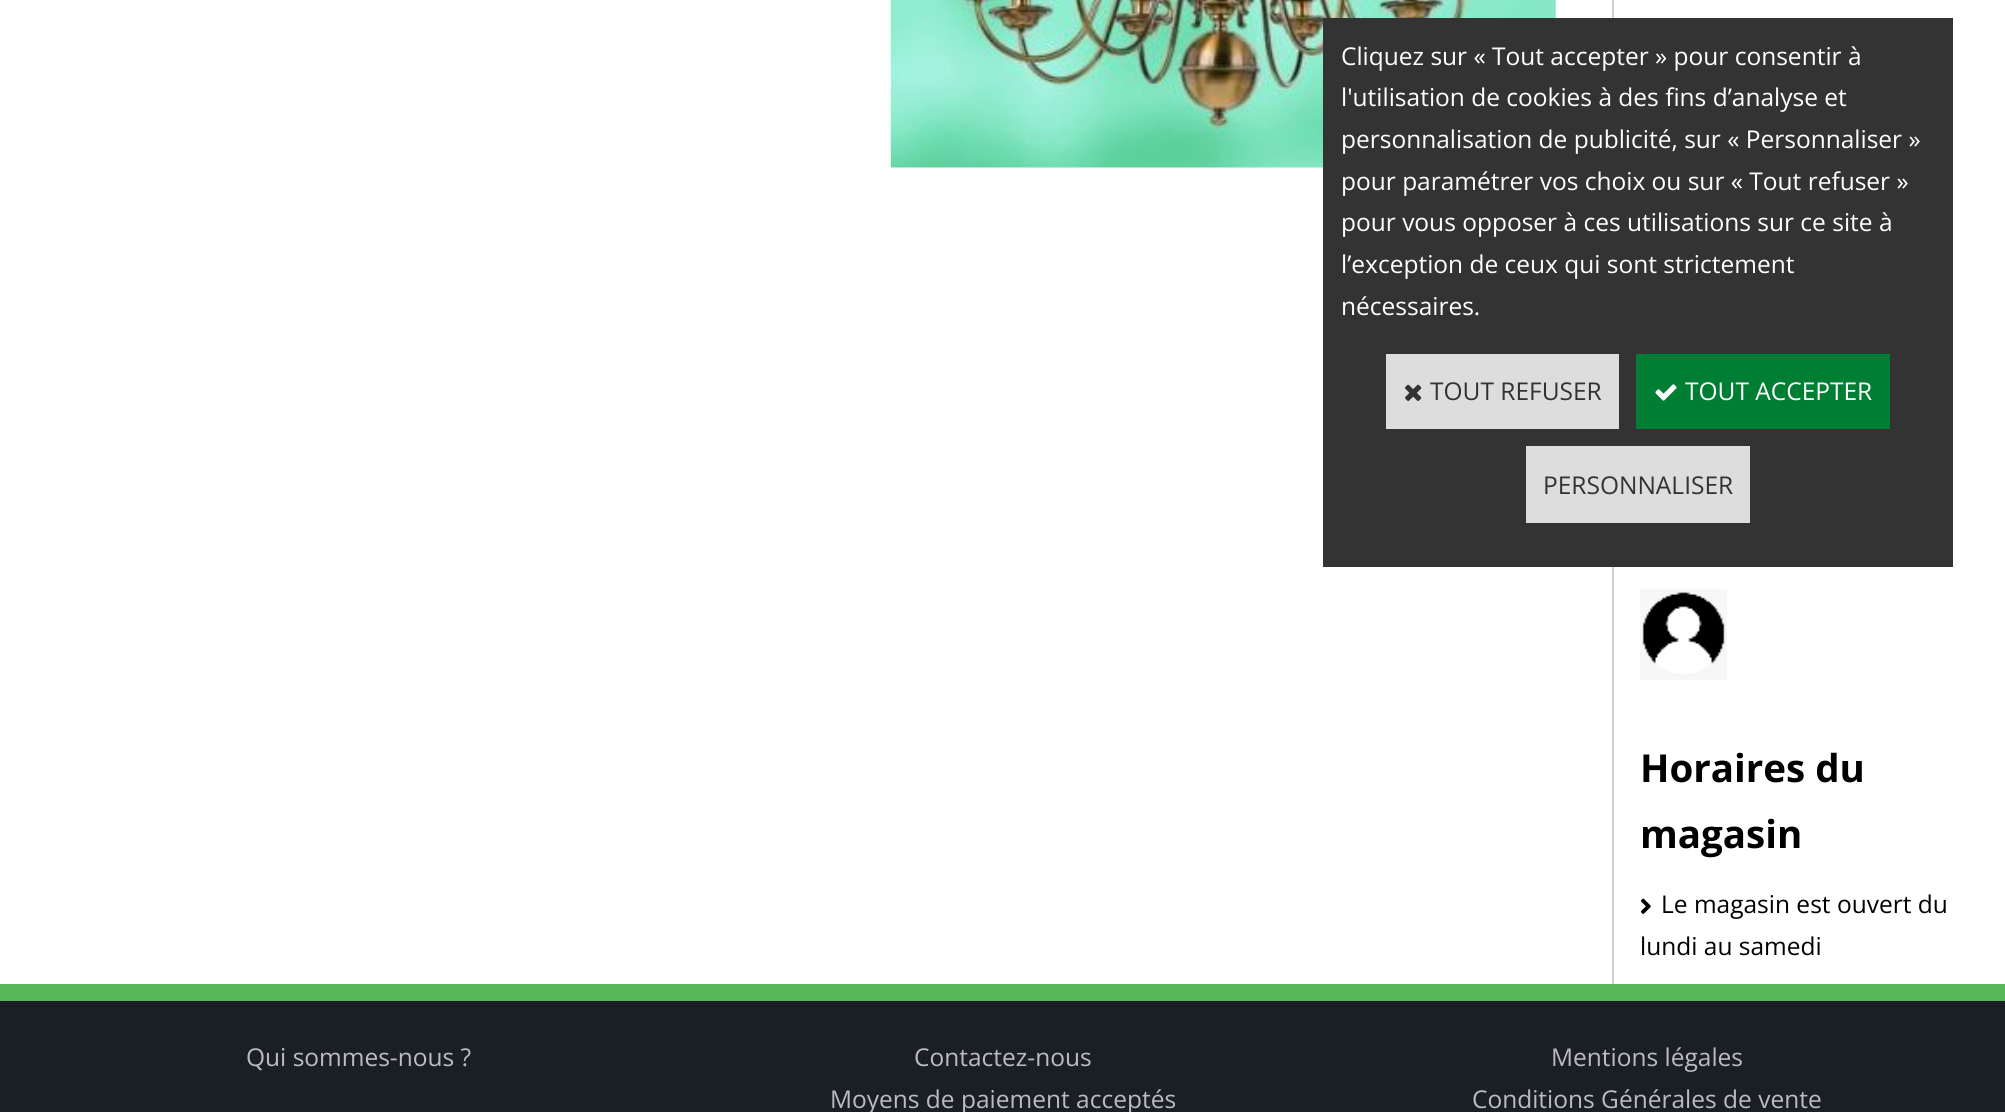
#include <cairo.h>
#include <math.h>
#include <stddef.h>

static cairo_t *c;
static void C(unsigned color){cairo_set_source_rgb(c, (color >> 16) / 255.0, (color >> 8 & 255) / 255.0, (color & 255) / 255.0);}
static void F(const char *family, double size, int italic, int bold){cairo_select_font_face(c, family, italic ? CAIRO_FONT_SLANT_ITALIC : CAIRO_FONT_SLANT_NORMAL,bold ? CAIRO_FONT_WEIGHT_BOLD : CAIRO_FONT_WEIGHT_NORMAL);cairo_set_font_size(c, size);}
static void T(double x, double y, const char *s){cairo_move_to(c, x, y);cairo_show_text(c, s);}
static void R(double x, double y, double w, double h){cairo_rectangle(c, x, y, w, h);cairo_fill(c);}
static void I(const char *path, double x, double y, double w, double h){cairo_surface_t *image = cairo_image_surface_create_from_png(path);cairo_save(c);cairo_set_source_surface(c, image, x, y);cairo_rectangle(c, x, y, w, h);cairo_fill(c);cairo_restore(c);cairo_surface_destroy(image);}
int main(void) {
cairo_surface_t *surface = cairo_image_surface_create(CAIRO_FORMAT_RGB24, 2005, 1112);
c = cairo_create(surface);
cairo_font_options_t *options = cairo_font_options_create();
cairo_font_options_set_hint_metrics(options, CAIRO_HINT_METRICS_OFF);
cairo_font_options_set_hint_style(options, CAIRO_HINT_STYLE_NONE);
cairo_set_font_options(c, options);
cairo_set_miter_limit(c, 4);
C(0xffffff);
cairo_paint(c);
I("3.png",890,0,666,168);
C(0xd0d0d0);
R(1612,0,2,984);
C(0x333333);
R(1323,18,630,549);
F("Open Sans",24.5,0,0);
C(0xffffff);
T(1341,65,"Cliquez sur « Tout accepter » pour consentir à");
T(1341,106,"l'utilisation de cookies à des fins d’analyse et");
T(1341,148,"personnalisation de publicité, sur « Personnaliser »");
T(1341,190,"pour paramétrer vos choix ou sur « Tout refuser »");
T(1341,231,"pour vous opposer à ces utilisations sur ce site à");
T(1341,273,"l’exception de ceux qui sont strictement");
T(1341,315,"nécessaires.");
C(0xdddddd);
R(1386,354,233,75);
I("1.png",1405,384,17,17);
C(0x333333);
T(1430,400,"TOUT REFUSER");
C(0x007e33);
R(1636,354,254,75);
I("2.png",1655,384,22,17);
C(0xffffff);
T(1685,400,"TOUT ACCEPTER");
C(0xdddddd);
R(1526,446,224,77);
C(0x333333);
T(1543,494,"PERSONNALISER");
I("4.png",1640,589,87,91);
F("Open Sans",38.5,0,1);
C(0x000000);
T(1640,782,"Horaires du");
T(1640,848,"magasin");
I("5.png",1641,898,10,16);
F("Open Sans",24.5,0,0);
T(1661,913,"Le magasin est ouvert du");
T(1640,955,"lundi au samedi");
C(0x1a1f26);
R(0,1001,2005,111);
C(0x56b856);
R(0,984,2005,17);
C(0xbabcbe);
T(246,1066,"Qui sommes-nous ?");
T(914,1066,"Contactez-nous");
T(1551,1066,"Mentions légales");
T(830,1108,"Moyens de paiement acceptés");
T(1472,1108,"Conditions Générales de vente");
cairo_surface_write_to_png(surface, "o.png");
cairo_font_options_destroy(options);
cairo_destroy(c);
cairo_surface_destroy(surface);
return 0;
}
